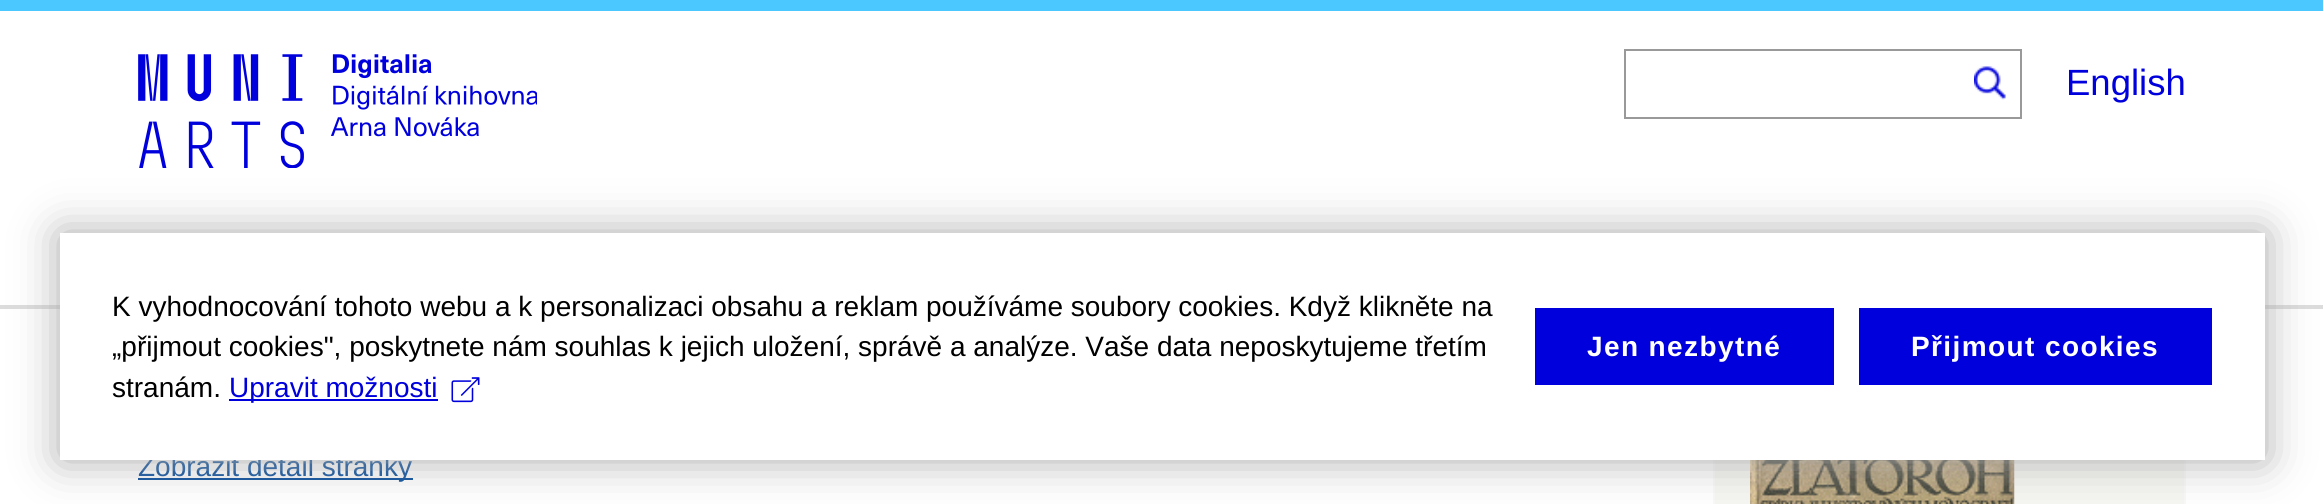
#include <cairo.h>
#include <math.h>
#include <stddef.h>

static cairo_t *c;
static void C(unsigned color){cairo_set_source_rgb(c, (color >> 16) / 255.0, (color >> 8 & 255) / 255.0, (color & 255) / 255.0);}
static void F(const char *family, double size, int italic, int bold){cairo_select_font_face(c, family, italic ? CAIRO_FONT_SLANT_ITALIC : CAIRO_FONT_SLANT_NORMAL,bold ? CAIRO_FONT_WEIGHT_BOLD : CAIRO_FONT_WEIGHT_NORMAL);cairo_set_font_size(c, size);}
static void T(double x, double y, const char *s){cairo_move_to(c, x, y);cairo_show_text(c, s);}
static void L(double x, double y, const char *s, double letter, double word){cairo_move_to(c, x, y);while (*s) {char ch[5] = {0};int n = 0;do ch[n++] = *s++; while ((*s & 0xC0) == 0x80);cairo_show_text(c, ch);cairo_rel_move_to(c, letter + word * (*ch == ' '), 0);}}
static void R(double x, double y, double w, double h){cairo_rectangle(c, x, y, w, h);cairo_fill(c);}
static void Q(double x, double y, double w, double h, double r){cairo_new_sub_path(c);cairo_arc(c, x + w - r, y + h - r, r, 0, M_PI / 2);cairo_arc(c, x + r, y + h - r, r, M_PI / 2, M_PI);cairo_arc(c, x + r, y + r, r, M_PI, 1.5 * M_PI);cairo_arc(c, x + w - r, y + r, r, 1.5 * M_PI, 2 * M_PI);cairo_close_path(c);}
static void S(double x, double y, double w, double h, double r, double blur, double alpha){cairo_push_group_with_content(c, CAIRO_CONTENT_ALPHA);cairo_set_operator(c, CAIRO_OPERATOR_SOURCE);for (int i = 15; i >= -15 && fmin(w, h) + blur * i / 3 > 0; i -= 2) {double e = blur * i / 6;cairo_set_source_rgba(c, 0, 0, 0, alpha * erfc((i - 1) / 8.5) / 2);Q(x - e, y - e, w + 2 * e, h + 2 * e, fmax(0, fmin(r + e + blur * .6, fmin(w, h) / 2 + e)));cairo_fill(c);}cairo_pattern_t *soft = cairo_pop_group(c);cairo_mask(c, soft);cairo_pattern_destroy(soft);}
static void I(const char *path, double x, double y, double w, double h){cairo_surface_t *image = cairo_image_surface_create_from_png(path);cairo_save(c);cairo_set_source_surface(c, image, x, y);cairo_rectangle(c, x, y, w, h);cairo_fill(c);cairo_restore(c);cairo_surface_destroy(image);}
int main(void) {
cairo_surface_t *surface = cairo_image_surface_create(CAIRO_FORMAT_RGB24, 2323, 504);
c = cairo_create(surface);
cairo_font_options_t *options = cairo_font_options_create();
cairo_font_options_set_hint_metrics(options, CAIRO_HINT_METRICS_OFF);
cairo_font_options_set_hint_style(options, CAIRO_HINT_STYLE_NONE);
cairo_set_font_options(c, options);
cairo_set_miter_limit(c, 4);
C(0xffffff);
cairo_paint(c);
C(0x4bc8ff);
R(0,0,2323,11);
C(0xdcdcdc);
R(0,305,2323,4);
I("1.png",138,54,399,114);
C(0x999999);
R(1624,49,397,2);
R(1624,117,336,2);
R(1624,49,2,70);
I("2.png",1974,66,32,34);
R(2020,49,2,70);
R(1960,117,61,2);
F("Liberation Sans",36.5,0,0);
C(0x0000dc);
T(2066,95,"English");
C(0x004899);
R(138,478,275,2);
F("Liberation Sans",28,0,0);
T(138,476,"Zobrazit detail stránky");
C(0xf6f6f2);
R(1715,460,469,44);
cairo_rectangle(c,1714,362,471,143);
C(0xf9f9f9);
cairo_stroke(c);
I("3.png",1750,460,265,44);
C(0xaaaaaa);
S(60,233,2205,227,0,22,1);
C(0xffffff);
R(60,233,2205,227);
C(0x000000);
T(112,316,"K vyhodnocování tohoto webu a k personalizaci obsahu a reklam používáme soubory cookies. Když klikněte na");
T(112,356,"„přijmout cookies\", poskytnete nám souhlas k jejich uložení, správě a analýze. Vaše data neposkytujeme třetím");
T(112,397,"stranám.");
C(0x0000dc);
R(229,399,209,2);
T(229,397,"Upravit možnosti");
I("4.png",451,377,29,26);
R(1535,308,299,77);
F("Liberation Sans",28,0,1);
C(0xffffff);
L(1587,356,"Jen nezbytné",1.4,0);
C(0x0000dc);
R(1859,308,353,77);
C(0xffffff);
L(1911,356,"Přijmout cookies",1.4,0);
cairo_surface_write_to_png(surface, "o.png");
cairo_font_options_destroy(options);
cairo_destroy(c);
cairo_surface_destroy(surface);
return 0;
}
